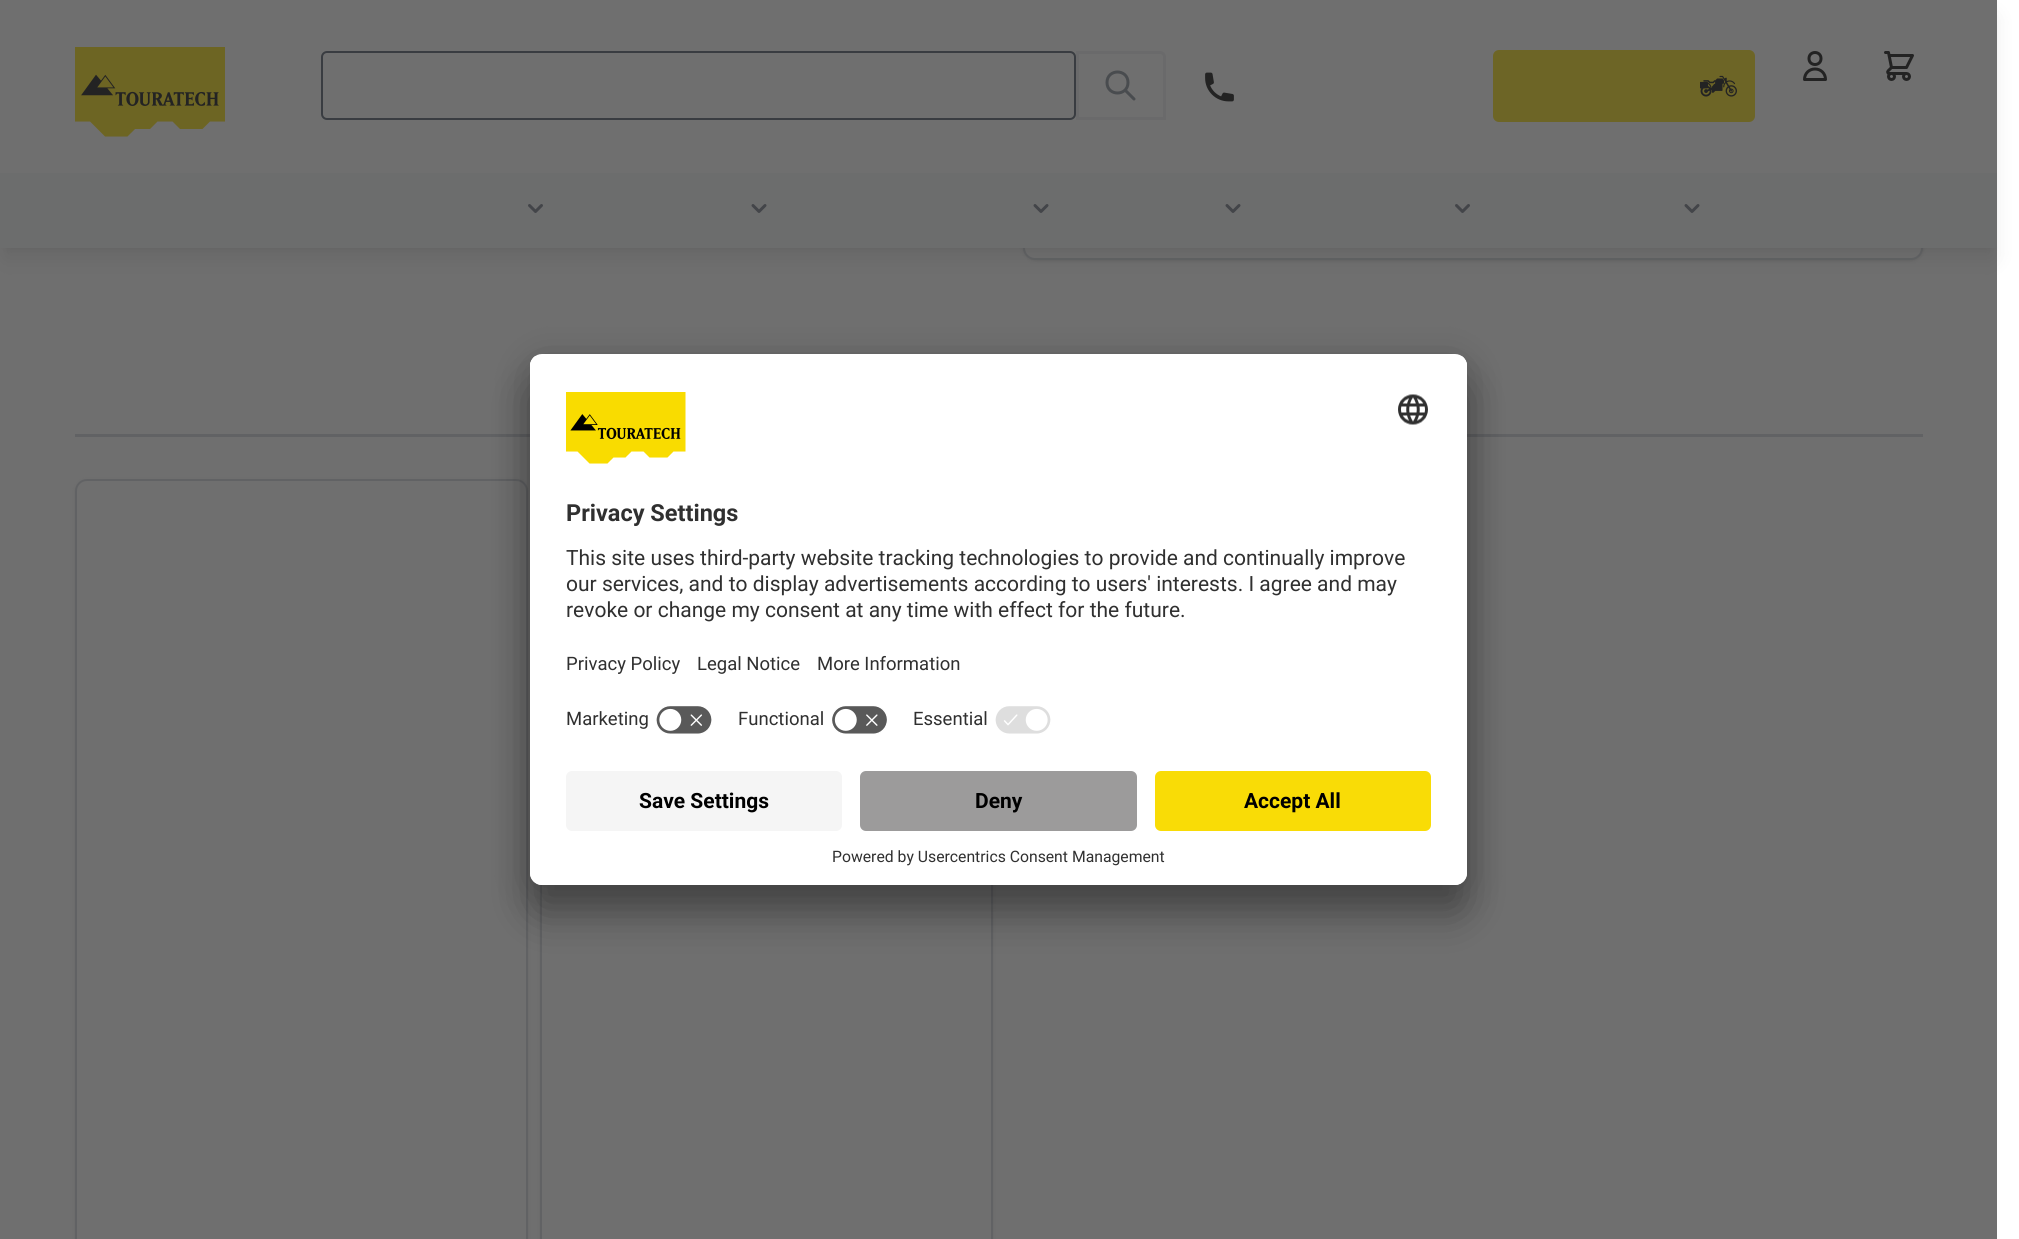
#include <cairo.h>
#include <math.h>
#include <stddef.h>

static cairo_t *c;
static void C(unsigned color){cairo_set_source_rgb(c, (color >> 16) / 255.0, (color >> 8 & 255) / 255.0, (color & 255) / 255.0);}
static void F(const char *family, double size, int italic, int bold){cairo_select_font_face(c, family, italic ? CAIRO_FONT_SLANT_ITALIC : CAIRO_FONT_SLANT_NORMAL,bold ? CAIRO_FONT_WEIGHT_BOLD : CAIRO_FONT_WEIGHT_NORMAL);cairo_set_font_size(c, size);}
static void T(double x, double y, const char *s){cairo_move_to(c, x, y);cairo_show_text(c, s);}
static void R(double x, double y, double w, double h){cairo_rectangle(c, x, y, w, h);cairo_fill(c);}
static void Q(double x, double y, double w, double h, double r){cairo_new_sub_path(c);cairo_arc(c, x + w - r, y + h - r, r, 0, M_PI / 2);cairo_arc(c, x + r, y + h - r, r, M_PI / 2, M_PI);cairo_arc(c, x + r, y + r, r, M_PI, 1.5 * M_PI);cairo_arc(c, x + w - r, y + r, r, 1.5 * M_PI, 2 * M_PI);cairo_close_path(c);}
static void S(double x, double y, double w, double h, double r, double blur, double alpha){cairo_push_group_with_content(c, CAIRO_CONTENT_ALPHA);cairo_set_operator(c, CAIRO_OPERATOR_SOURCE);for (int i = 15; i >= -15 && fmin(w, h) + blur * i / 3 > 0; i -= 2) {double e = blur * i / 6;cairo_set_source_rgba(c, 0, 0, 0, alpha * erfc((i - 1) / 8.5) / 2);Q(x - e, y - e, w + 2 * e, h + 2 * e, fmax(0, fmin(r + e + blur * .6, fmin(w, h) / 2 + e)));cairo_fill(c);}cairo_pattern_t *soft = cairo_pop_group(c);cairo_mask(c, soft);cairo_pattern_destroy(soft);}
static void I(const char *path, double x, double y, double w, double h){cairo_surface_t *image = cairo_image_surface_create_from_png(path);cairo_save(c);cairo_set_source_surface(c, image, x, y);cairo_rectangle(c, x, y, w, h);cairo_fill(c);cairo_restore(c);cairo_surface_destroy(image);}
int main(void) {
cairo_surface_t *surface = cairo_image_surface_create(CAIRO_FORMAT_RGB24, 2019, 1239);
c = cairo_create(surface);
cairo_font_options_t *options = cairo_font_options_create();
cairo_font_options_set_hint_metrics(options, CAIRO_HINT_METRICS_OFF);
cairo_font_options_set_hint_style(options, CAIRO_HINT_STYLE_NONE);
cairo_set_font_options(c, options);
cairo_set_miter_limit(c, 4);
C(0xffffff);
cairo_paint(c);
C(0x000000);
S(1025,-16,897,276,11,1.5,.1);
S(1023,-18,900,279,12,2,.1);
C(0xffffff);
Q(1024,-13,898,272,11);
cairo_fill_preserve(c);
C(0xd1d5db);
cairo_stroke(c);
R(75,434,1848,3);
C(0x000000);
S(75,480,453,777,12,2,.1);
C(0xffffff);
Q(76,480,451,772,11);
cairo_fill_preserve(c);
C(0xd1d5db);
cairo_stroke(c);
C(0x000000);
S(540,480,453,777,12,2,.1);
C(0xffffff);
R(542,885,449,354);
cairo_rectangle(c,541,480,451,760);
C(0xd1d5db);
cairo_stroke(c);
C(0x000000);
S(6,11,1985,237,0,4.5,.1);
S(5,18,1987,240,0,11,.1);
C(0xffffff);
R(0,0,1997,173);
I("1.png",75,47,150,90);
Q(322,52,753,67,5);
C(0x4b5563);
cairo_stroke(c);
cairo_new_path(c);
cairo_move_to(c,1077.5,52.5);
cairo_line_to(c,1160,52.5);
cairo_curve_to(c,1162.5,52.5,1164.5,54.5,1164.5,57);
cairo_line_to(c,1164.5,118.5);
cairo_line_to(c,1077.5,118.5);
cairo_close_path(c);
C(0xedeef1);
cairo_set_line_width(c,3);
cairo_stroke(c);
cairo_new_path(c);
cairo_move_to(c,1134,99);
cairo_line_to(c,1125,90);
cairo_move_to(c,1128,82.5);
cairo_curve_to(c,1128,96.5,1107,96.5,1107,82.5);
cairo_curve_to(c,1107,68.5,1128,68.5,1128,82.5);
cairo_close_path(c);
C(0x818892);
cairo_set_line_cap(c,CAIRO_LINE_CAP_ROUND);
cairo_set_line_join(c,CAIRO_LINE_JOIN_ROUND);
cairo_stroke(c);
I("2.png",1205,72,29,30);
C(0xf9dc0a);
Q(1493,50,262,72,6);
cairo_fill(c);
I("3.png",1700,75,37,22);
cairo_new_path(c);
cairo_move_to(c,1821,58.5);
cairo_curve_to(c,1821,66.5,1809,66.5,1809,58.5);
cairo_curve_to(c,1809,50.5,1821,50.5,1821,58.5);
cairo_close_path(c);
cairo_move_to(c,1815,69);
cairo_curve_to(c,1809,69,1804.5,73.5,1804.5,79.5);
cairo_line_to(c,1825.5,79.5);
cairo_curve_to(c,1825.5,73.5,1821,69,1815,69);
cairo_close_path(c);
C(0x000000);
cairo_stroke(c);
I("4.png",1884,51,30,30);
C(0xf6f7f8);
R(0,173,1997,75);
I("5.png",528,204,15,9);
I("6.png",751,204,16,9);
I("6.png",1033,204,16,9);
I("6.png",1225,204,16,9);
I("5.png",1455,204,15,9);
I("6.png",1684,204,16,9);
cairo_set_source_rgba(c,0.2,0.2,0.2,0.7);
R(0,0,1997,1239);
C(0x000000);
S(530,384,937,531,12,21,.3);
S(530,362,937,531,12,19.5,.22);
C(0xffffff);
Q(530,354,937,531,12);
cairo_fill(c);
cairo_save(c);
Q(530,354,937,531,12);
cairo_clip(c);
cairo_new_path(c);
cairo_move_to(c,542,354);
cairo_line_to(c,1455,354);
cairo_curve_to(c,1461.5,354,1467,359.5,1467,366);
cairo_line_to(c,1467,759);
cairo_line_to(c,530,759);
cairo_line_to(c,530,366);
cairo_curve_to(c,530,359.5,535.5,354,542,354);
cairo_close_path(c);
cairo_clip(c);
R(530,356,937,403);
R(530,356,937,343);
cairo_restore(c);
I("7.png",566,392,120,72);
I("8.png",1398,394,30,31);
F("Roboto",23.5,0,1);
C(0x303030);
T(566,521,"Privacy Settings");
F("Roboto",21,0,0);
T(566,565,"This site uses third-party website tracking technologies to provide and continually improve");
T(566,591,"our services, and to display advertisements according to users' interests. I agree and may");
T(566,617,"revoke or change my consent at any time with effect for the future.");
F("Roboto",18.5,0,0);
T(566,670,"Privacy Policy");
T(697,670,"Legal Notice");
T(817,670,"More Information");
T(566,725,"Marketing");
I("9.png",656,706,56,28);
T(738,725,"Functional");
I("10.png",832,706,55,28);
T(913,725,"Essential");
I("11.png",995,706,56,28);
C(0xffffff);
cairo_new_path(c);
cairo_move_to(c,530,759);
cairo_line_to(c,1467,759);
cairo_line_to(c,1467,873);
cairo_curve_to(c,1467,879.5,1461.5,885,1455,885);
cairo_line_to(c,542,885);
cairo_curve_to(c,535.5,885,530,879.5,530,873);
cairo_close_path(c);
cairo_fill(c);
C(0xf5f5f5);
Q(566,771,276,60,6);
cairo_fill(c);
F("Roboto",21,0,1);
C(0x000000);
T(639,808,"Save Settings");
C(0x9c9b9b);
Q(860,771,277,60,6);
cairo_fill(c);
C(0x000000);
T(975,808,"Deny");
C(0xf9dc06);
Q(1155,771,276,60,6);
cairo_fill(c);
C(0x000000);
T(1244,808,"Accept All");
F("Roboto",15.75,0,0);
C(0x303030);
T(832,862,"Powered by Usercentrics Consent Management");
cairo_surface_write_to_png(surface, "o.png");
cairo_font_options_destroy(options);
cairo_destroy(c);
cairo_surface_destroy(surface);
return 0;
}
